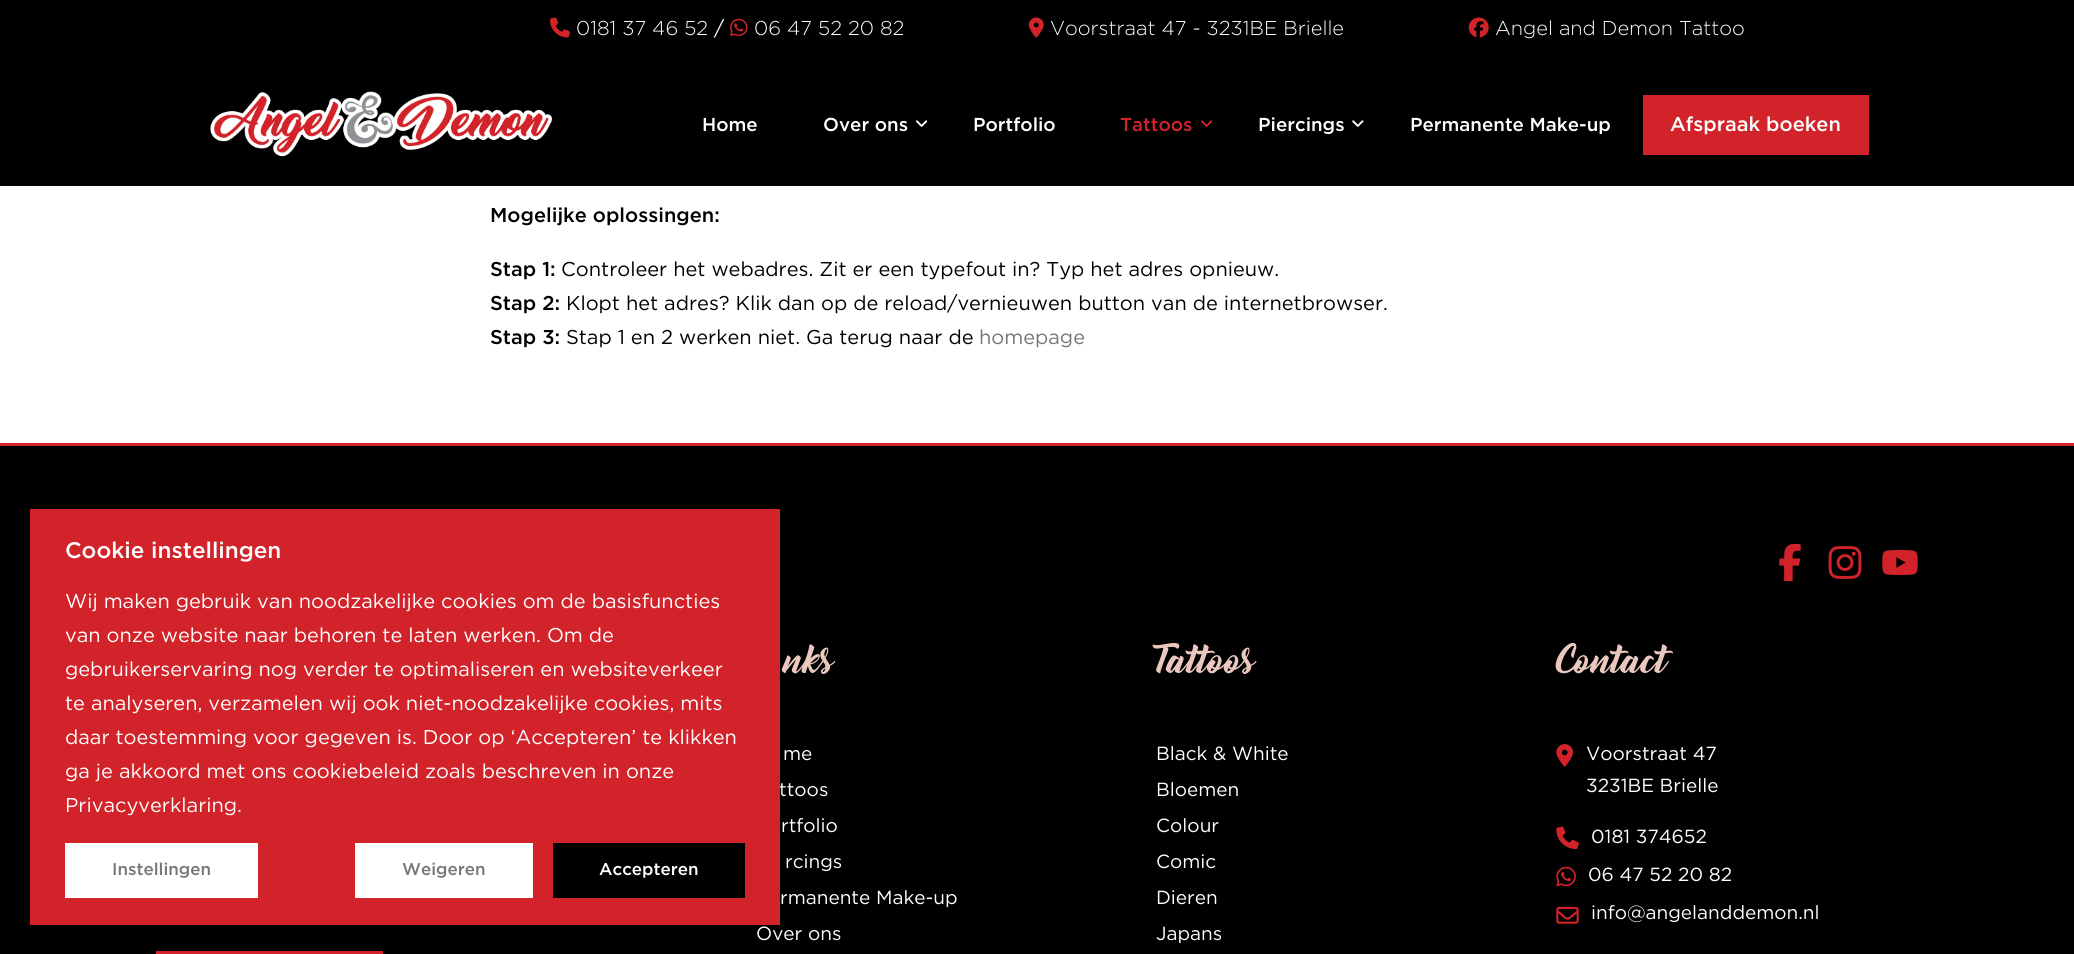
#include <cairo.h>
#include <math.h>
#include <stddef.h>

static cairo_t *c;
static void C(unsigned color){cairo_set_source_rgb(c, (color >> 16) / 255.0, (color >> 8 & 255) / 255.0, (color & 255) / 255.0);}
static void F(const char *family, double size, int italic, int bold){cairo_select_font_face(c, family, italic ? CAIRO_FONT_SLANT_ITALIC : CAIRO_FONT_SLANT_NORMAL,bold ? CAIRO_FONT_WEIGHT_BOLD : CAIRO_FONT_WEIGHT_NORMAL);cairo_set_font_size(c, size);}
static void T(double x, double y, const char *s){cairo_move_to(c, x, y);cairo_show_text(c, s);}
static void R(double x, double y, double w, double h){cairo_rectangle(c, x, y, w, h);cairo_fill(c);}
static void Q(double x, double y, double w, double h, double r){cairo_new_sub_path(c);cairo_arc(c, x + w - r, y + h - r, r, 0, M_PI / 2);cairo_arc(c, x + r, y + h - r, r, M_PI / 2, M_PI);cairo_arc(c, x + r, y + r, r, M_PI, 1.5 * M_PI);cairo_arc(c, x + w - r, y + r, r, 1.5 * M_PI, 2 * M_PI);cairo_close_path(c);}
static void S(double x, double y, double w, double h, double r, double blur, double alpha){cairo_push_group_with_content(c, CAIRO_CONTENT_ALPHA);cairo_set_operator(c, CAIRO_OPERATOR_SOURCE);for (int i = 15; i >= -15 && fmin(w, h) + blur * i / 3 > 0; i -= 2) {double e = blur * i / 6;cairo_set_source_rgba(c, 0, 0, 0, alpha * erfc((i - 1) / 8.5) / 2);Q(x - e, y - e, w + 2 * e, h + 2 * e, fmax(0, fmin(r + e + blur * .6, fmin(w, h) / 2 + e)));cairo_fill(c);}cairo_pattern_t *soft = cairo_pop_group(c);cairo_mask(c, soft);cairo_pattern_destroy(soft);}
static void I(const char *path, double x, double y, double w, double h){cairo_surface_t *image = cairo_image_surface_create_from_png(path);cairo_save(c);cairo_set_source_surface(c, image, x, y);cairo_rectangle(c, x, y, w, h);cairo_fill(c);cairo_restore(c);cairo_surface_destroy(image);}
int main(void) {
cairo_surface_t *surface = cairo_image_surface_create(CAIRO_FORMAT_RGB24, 2074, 954);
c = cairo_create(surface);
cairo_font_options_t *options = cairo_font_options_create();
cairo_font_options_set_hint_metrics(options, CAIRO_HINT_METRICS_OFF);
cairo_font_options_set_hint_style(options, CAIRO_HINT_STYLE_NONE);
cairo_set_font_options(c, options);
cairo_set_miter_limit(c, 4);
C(0xffffff);
cairo_paint(c);
C(0x000000);
R(0,0,2074,186);
I("1.png",550,17,20,21);
F("Gotham Light",20,0,0);
C(0xffffff);
T(576,35,"0181 37 46 52");
F("Gotham",20,0,0);
T(714,35,"/");
I("2.png",730,18,18,19);
F("Gotham Light",20,0,0);
T(754,35,"06 47 52 20 82");
I("3.png",1028,17,16,21);
T(1050,35,"Voorstraat 47 - 3231BE Brielle");
I("4.png",1468,17,21,21);
T(1495,35,"Angel and Demon Tattoo");
I("5.png",210,91,343,66);
F("Gotham Medium",18.75,0,0);
T(702,131,"Home");
T(823,131,"Over ons");
I("6.png",916,120,12,7);
T(973,131,"Portfolio");
C(0xd2232a);
T(1120,131,"Tattoos");
I("7.png",1201,120,12,7);
C(0xffffff);
T(1258,131,"Piercings");
I("8.png",1352,120,12,7);
T(1410,131,"Permanente Make‑up");
C(0xd2232a);
R(1643,95,226,60);
F("Gotham Medium",20,0,0);
C(0xffffff);
T(1670,131,"Afspraak boeken");
C(0x000000);
T(490,222,"Mogelijke oplossingen:");
T(490,276,"Stap 1:");
F("Gotham",20,0,0);
T(561,276,"Controleer het webadres. Zit er een typefout in? Typ het adres opnieuw.");
F("Gotham Medium",20,0,0);
T(490,310,"Stap 2:");
F("Gotham",20,0,0);
T(566,310,"Klopt het adres? Klik dan op de reload/vernieuwen button van de internetbrowser.");
F("Gotham Medium",20,0,0);
T(490,344,"Stap 3:");
F("Gotham",20,0,0);
T(566,344,"Stap 1 en 2 werken niet. Ga terug naar de");
C(0x767676);
T(979,344,"homepage");
C(0x000000);
R(0,446,2074,508);
C(0x000000);
S(30,513,750,416,0,4,.3);
C(0xd2232a);
R(30,509,750,416);
F("Gotham Medium",22.5,0,0);
C(0xffffff);
T(65,558,"Cookie instellingen");
F("Gotham",20,0,0);
T(65,608,"Wij maken gebruik van noodzakelijke cookies om de basisfuncties");
T(65,642,"van onze website naar behoren te laten werken. Om de");
T(65,676,"gebruikerservaring nog verder te optimaliseren en websiteverkeer");
T(65,710,"te analyseren, verzamelen wij ook niet-noodzakelijke cookies, mits");
T(65,744,"daar toestemming voor gegeven is. Door op ‘Accepteren’ te klikken");
T(65,778,"ga je akkoord met ons cookiebeleid zoals beschreven in onze");
T(65,812,"Privacyverklaring.");
R(65,843,193,55);
F("Gotham Medium",17,0,0);
C(0x767676);
T(112,875,"Instellingen");
C(0xffffff);
R(355,843,178,55);
C(0x767676);
T(402,875,"Weigeren");
C(0x000000);
R(553,843,192,55);
C(0xffffff);
T(599,875,"Accepteren");
C(0xd2232a);
R(0,443,2074,3);
I("9.png",1779,544,22,37);
I("10.png",1828,546,34,33);
I("11.png",1882,550,36,25);
F("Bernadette",35,0,0);
C(0xeac8bd);
T(785,673,"nks");
F("Gotham",19,0,0);
C(0xffffff);
T(783,760,"me");
T(779,796,"ttoos");
T(781,832,"rtfolio");
T(785,868,"rcings");
T(780,904,"rmanente Make-up");
T(756,940,"Over ons");
F("Bernadette",35,0,0);
C(0xeac8bd);
T(1156,673,"Tattoos");
F("Gotham",19,0,0);
C(0xffffff);
T(1156,760,"Black & White");
T(1156,796,"Bloemen");
T(1156,832,"Colour");
T(1156,868,"Comic");
T(1156,904,"Dieren");
T(1156,940,"Japans");
F("Bernadette",35,0,0);
C(0xeac8bd);
T(1556,673,"Contact");
I("12.png",1556,744,18,23);
F("Gotham",19,0,0);
C(0xffffff);
T(1586,760,"Voorstraat 47");
T(1586,792,"3231BE Brielle");
I("13.png",1556,826,23,24);
T(1591,843,"0181 374652");
I("14.png",1556,866,20,21);
T(1588,881,"06 47 52 20 82");
I("15.png",1556,906,23,18);
T(1591,919,"info@angelanddemon.nl");
C(0xd2232a);
R(156,951,227,3);
cairo_surface_write_to_png(surface, "o.png");
cairo_font_options_destroy(options);
cairo_destroy(c);
cairo_surface_destroy(surface);
return 0;
}
